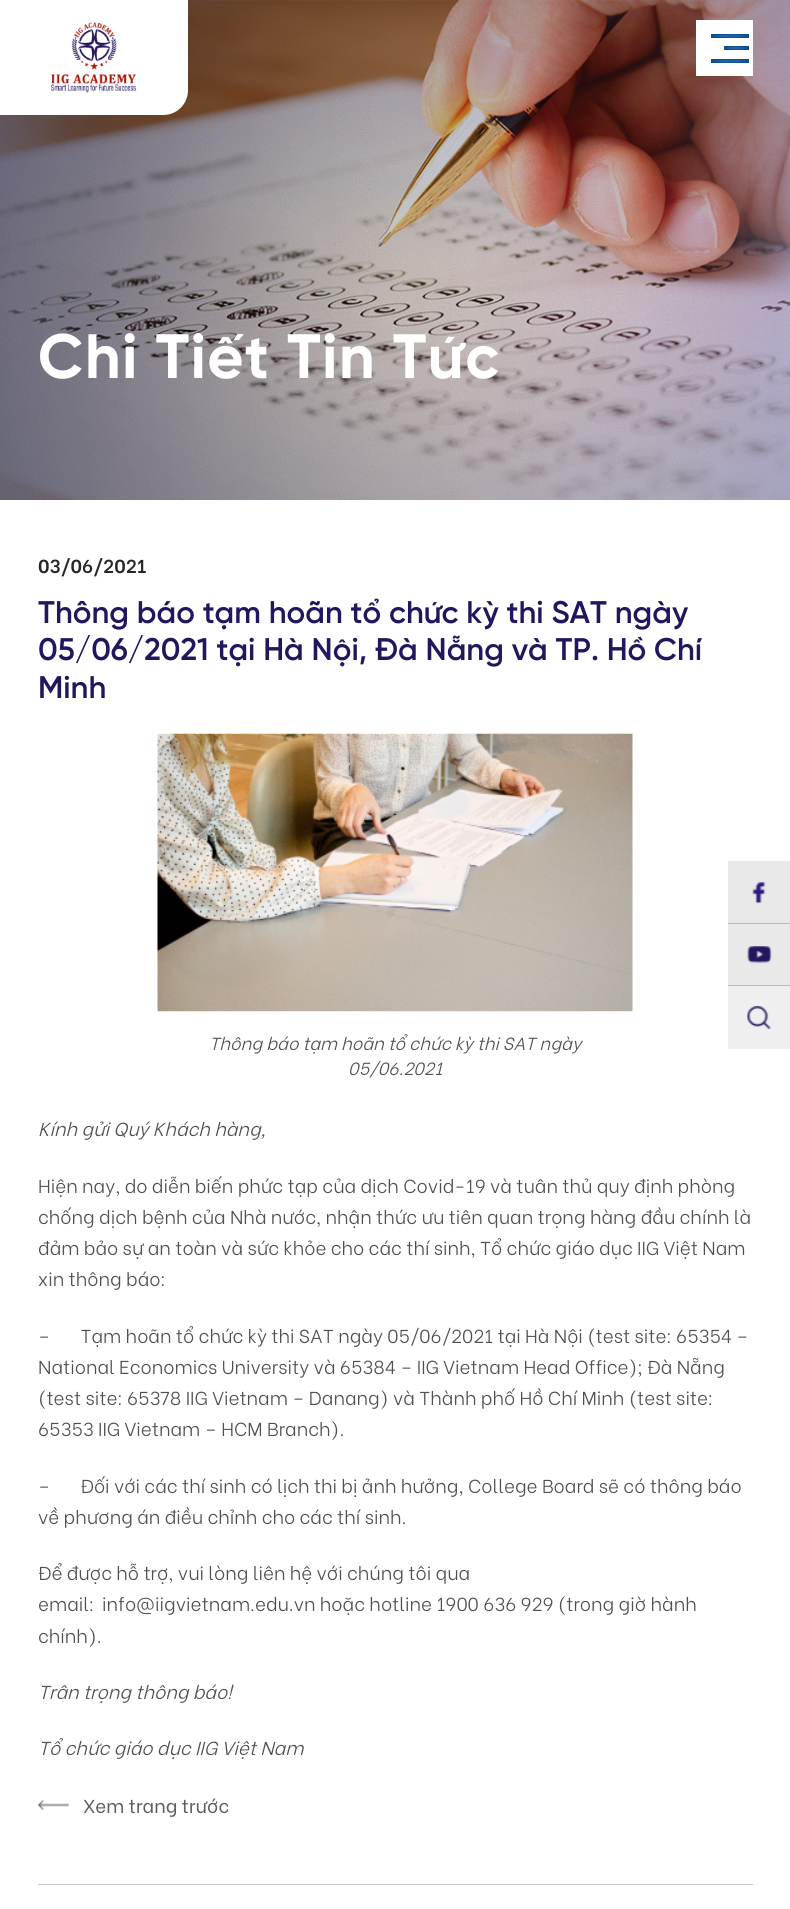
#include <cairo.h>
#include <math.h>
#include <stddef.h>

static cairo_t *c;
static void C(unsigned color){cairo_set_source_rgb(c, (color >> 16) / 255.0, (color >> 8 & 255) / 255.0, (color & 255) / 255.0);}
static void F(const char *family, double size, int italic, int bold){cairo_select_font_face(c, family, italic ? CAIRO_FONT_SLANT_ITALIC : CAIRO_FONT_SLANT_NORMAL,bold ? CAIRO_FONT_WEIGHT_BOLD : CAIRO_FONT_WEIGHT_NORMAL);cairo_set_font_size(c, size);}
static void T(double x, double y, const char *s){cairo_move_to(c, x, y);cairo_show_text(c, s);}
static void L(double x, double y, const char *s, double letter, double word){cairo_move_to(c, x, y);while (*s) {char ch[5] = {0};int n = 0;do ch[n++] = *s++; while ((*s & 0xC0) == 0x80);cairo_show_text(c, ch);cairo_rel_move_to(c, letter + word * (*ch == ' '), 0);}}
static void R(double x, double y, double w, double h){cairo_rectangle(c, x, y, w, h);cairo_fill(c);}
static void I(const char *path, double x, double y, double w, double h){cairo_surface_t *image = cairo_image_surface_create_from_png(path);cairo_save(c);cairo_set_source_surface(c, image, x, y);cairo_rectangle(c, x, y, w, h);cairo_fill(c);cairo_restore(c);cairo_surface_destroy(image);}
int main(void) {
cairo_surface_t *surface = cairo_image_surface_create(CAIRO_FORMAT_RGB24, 790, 1909);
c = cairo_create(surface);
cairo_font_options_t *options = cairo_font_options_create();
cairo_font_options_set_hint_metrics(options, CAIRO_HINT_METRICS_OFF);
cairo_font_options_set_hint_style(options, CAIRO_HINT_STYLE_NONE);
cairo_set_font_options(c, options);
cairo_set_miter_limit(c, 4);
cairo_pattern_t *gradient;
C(0xffffff);
cairo_paint(c);
I("2.png",0,0,790,500);
I("3.png",0,0,790,500);
C(0xffffff);
cairo_new_path(c);
cairo_move_to(c,0,0);
cairo_line_to(c,188,0);
cairo_line_to(c,188,90);
cairo_curve_to(c,188,104,177,115,163,115);
cairo_line_to(c,0,115);
cairo_close_path(c);
cairo_fill(c);
I("1.png",51,22,86,71);
R(696,20,57,56);
gradient = cairo_pattern_create_radial(0,0,0,0,0,1);
cairo_pattern_set_matrix(gradient, &(cairo_matrix_t){1.0 / 19, 0, 0, 1.0 / 1.9, -1.0 * 730 / 19, -1.0 * 36 / 1.9});
cairo_pattern_add_color_stop_rgba(gradient,.54,0.11,0.38,0.659,1);
cairo_pattern_add_color_stop_rgba(gradient,1,0.055,0.298,0.549,1);
cairo_set_source(c,gradient);
cairo_pattern_destroy(gradient);
R(711,34,38,4);
gradient = cairo_pattern_create_radial(0,0,0,0,0,1);
cairo_pattern_set_matrix(gradient, &(cairo_matrix_t){1.0 / 13, 0, 0, 1.0 / 1.9, -1.0 * 736 / 13, -1.0 * 48 / 1.9});
cairo_pattern_add_color_stop_rgba(gradient,.54,0.11,0.38,0.659,1);
cairo_pattern_add_color_stop_rgba(gradient,1,0.055,0.298,0.549,1);
cairo_set_source(c,gradient);
cairo_pattern_destroy(gradient);
R(724,46,25,4);
gradient = cairo_pattern_create_radial(0,0,0,0,0,1);
cairo_pattern_set_matrix(gradient, &(cairo_matrix_t){1.0 / 19, 0, 0, 1.0 / 1.9, -1.0 * 730 / 19, -1.0 * 61 / 1.9});
cairo_pattern_add_color_stop_rgba(gradient,.54,0.11,0.38,0.659,1);
cairo_pattern_add_color_stop_rgba(gradient,1,0.055,0.298,0.549,1);
cairo_set_source(c,gradient);
cairo_pattern_destroy(gradient);
R(711,59,38,4);
F("Gilroy",62.5,0,1);
C(0xffffff);
L(38,378,"Chi Tiết Tin Tức",1.25,0);
F("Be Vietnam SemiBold",18.75,0,0);
C(0x272727);
T(38,573,"03/06/2021");
F("Gilroy SemiBold",31.25,0,0);
C(0x23165e);
T(38,623,"Thông báo tạm hoãn tổ chức kỳ thi SAT ngày");
T(38,660,"05/06/2021 tại Hà Nội, Đà Nẵng và TP. Hồ Chí");
T(38,698,"Minh");
I("4.png",157,733,476,279);
F("Be Vietnam Light",17.5,1,0);
C(0x4f4f4f);
T(209,1050,"Thông báo tạm hoãn tổ chức kỳ thi SAT ngày");
T(348,1075,"05/06.2021");
F("Be Vietnam Light",18.75,1,0);
T(38,1136,"Kính gửi Quý Khách hàng,");
F("Be Vietnam Light",18.75,0,0);
T(38,1193,"Hiện nay, do diễn biến phức tạp của dịch Covid-19 và tuân thủ quy định phòng");
T(38,1224,"chống dịch bệnh của Nhà nước, nhận thức ưu tiên quan trọng hàng đầu chính là");
T(38,1255,"đảm bảo sự an toàn và sức khỏe cho các thí sinh, Tổ chức giáo dục IIG Việt Nam");
T(38,1286,"xin thông báo:");
T(38,1343,"–       Tạm hoãn tổ chức kỳ thi SAT ngày 05/06/2021 tại Hà Nội (test site: 65354 –");
T(38,1374,"National Economics University và 65384 – IIG Vietnam Head Office); Đà Nẵng");
T(38,1405,"(test site: 65378 IIG Vietnam – Danang) và Thành phố Hồ Chí Minh (test site:");
T(38,1436,"65353 IIG Vietnam – HCM Branch).");
T(38,1493,"–       Đối với các thí sinh có lịch thi bị ảnh hưởng, College Board sẽ có thông báo");
T(38,1524,"về phương án điều chỉnh cho các thí sinh.");
T(38,1580,"Để được hỗ trợ, vui lòng liên hệ với chúng tôi qua");
T(38,1611,"email:");
T(102,1611,"info@iigvietnam.edu.vn hoặc hotline 1900 636 929 (trong giờ hành");
T(38,1643,"chính).");
F("Be Vietnam Light",18.75,1,0);
T(38,1699,"Trân trọng thông báo!");
T(38,1755,"Tổ chức giáo dục IIG Việt Nam");
I("5.png",37,1800,32,10);
F("Be Vietnam",18.75,0,0);
C(0x5e5e5e);
T(83,1813,"Xem trang trước");
C(0xc9c9c9);
R(38,1884,715,1);
C(0xe9e9e9);
R(728,861,62,62);
C(0xa8bdd3);
R(728,923,62,1);
I("6.png",751,882,15,22);
C(0xe9e9e9);
R(728,924,62,61);
C(0xa8bdd3);
R(728,985,62,1);
I("7.png",747,946,25,18);
C(0xefefef);
R(728,986,62,63);
I("8.png",747,1006,24,23);
cairo_surface_write_to_png(surface, "o.png");
cairo_font_options_destroy(options);
cairo_destroy(c);
cairo_surface_destroy(surface);
return 0;
}
